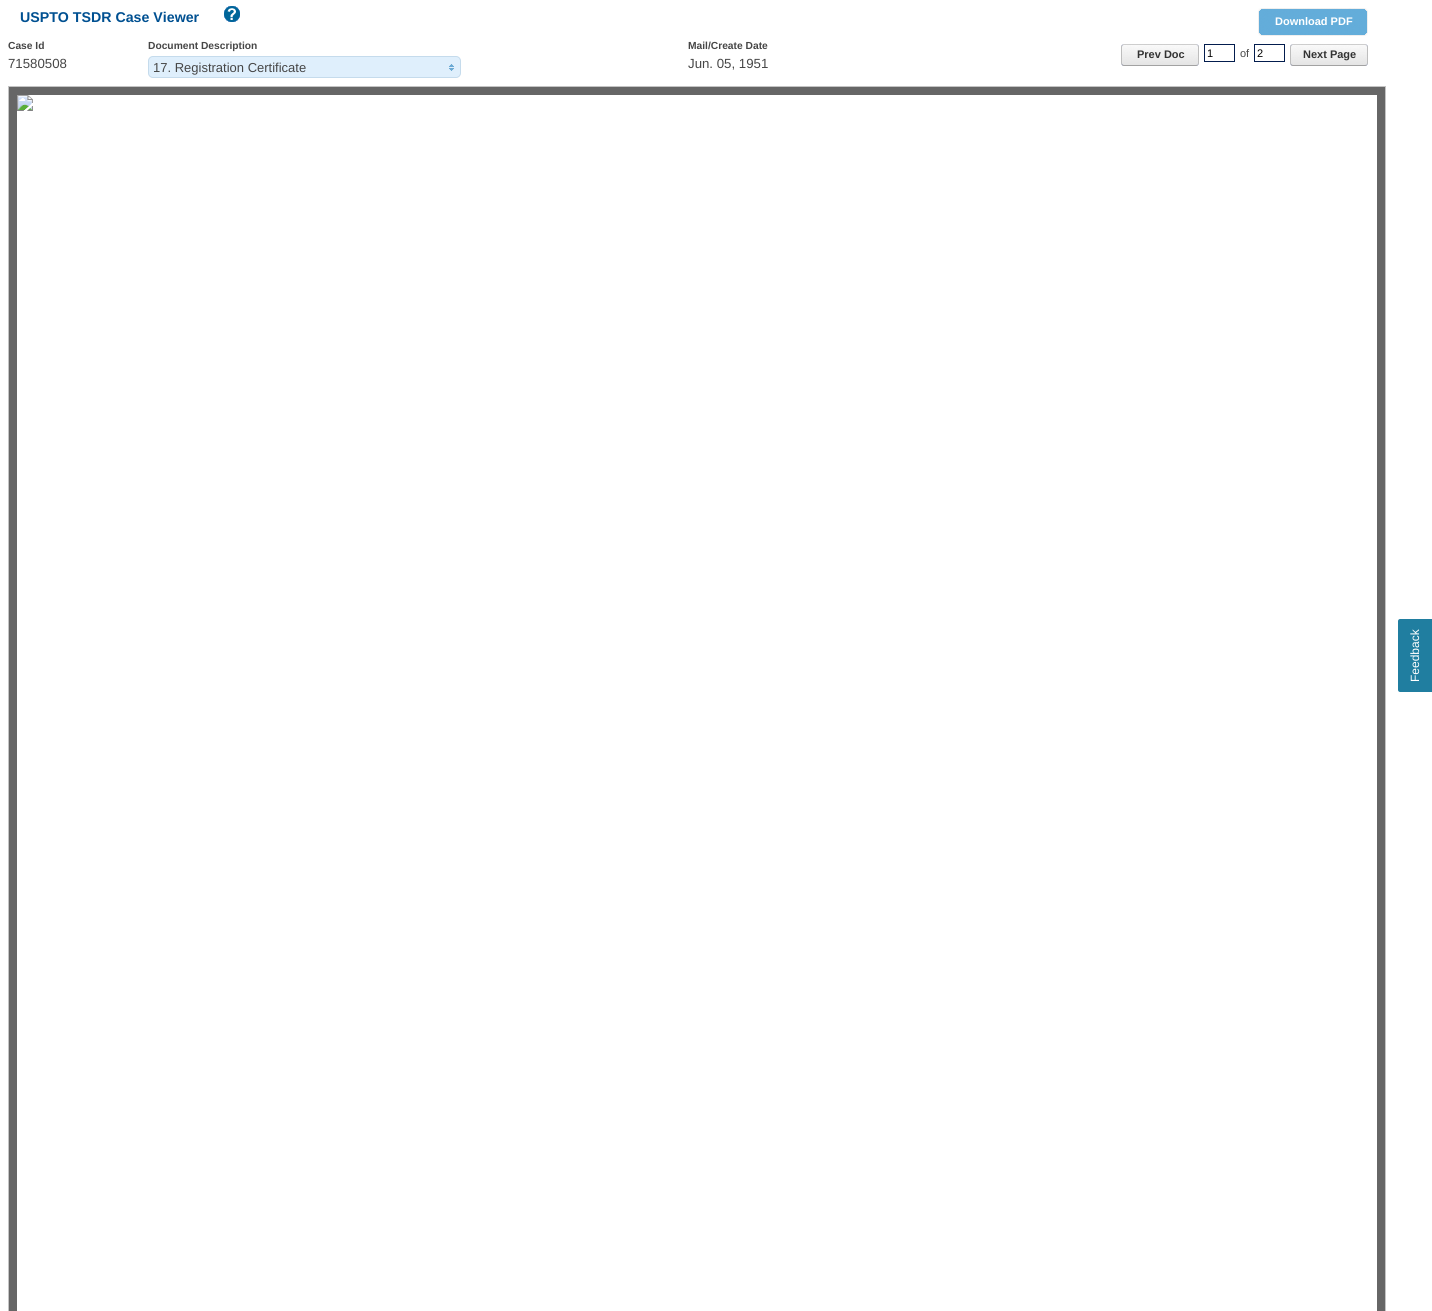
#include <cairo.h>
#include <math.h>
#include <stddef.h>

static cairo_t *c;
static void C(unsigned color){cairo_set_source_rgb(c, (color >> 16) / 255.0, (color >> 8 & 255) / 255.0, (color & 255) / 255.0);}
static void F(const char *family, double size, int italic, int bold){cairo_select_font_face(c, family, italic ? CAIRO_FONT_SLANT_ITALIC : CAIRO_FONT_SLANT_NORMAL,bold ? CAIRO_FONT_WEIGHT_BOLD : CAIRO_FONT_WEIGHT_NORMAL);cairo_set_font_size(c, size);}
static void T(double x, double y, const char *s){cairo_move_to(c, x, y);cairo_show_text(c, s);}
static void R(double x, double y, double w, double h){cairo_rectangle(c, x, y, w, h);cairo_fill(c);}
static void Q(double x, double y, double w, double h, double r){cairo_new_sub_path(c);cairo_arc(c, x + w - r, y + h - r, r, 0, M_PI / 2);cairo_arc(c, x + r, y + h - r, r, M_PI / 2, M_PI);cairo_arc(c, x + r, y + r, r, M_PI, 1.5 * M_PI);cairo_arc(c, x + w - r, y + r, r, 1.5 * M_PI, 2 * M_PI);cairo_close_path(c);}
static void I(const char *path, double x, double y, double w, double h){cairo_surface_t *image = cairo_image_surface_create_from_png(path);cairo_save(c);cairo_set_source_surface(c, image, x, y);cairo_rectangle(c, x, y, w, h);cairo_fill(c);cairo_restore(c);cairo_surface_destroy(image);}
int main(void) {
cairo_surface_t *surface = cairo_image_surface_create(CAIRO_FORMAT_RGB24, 1432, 1311);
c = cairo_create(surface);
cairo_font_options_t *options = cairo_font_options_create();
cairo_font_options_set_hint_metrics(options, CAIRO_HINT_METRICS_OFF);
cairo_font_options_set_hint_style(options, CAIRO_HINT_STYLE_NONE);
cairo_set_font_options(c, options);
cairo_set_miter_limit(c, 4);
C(0xffffff);
cairo_paint(c);
F("Liberation Sans",14.2,0,1);
C(0x005091);
T(20,22,"USPTO TSDR Case Viewer");
I("1.png",224,6,16,16);
I("2.png",1258,8,110,28);
F("Liberation Sans",11,0,1);
C(0xffffff);
T(1275,25,"Download PDF");
F("Liberation Sans",10.25,0,1);
C(0x464646);
T(8,49,"Case Id");
F("Liberation Sans",13.25,0,0);
T(8,68,"71580508");
F("Liberation Sans",10.25,0,1);
T(148,49,"Document Description");
C(0xdfeffc);
Q(148.5,56.5,312,21,4.5);
cairo_fill_preserve(c);
C(0xc5dbec);
cairo_set_line_width(c,1);
cairo_stroke(c);
F("Liberation Sans",13,0,0);
C(0x464646);
T(153,72,"17. Registration Certificate");
I("3.png",449,64,5,7);
F("Liberation Sans",10.25,0,1);
T(688,49,"Mail/Create Date");
F("Liberation Sans",13.25,0,0);
T(688,68,"Jun. 05, 1951");
I("4.png",1121,44,78,22);
F("Liberation Sans",11,0,1);
C(0x333333);
T(1137,58,"Prev Doc");
cairo_rectangle(c,1204.5,44.5,30,17);
C(0x031d4e);
cairo_stroke(c);
F("Liberation Sans",11,0,0);
C(0x000000);
T(1207,57,"1");
C(0x464646);
T(1240,57,"of");
cairo_rectangle(c,1254.5,44.5,30,17);
C(0x031d4e);
cairo_stroke(c);
C(0x000000);
T(1257,57,"2");
I("4.png",1290,44,78,22);
F("Liberation Sans",11,0,1);
C(0x333333);
T(1303,58,"Next Page");
C(0x666666);
cairo_rectangle(c,8.5,86.5,1377,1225);
cairo_fill_preserve(c);
C(0xc4c4c4);
cairo_stroke(c);
C(0xffffff);
R(17,95,1360,1216);
I("5.png",17,95,16,16);
C(0x207ea0);
cairo_new_path(c);
cairo_move_to(c,1432,692);
cairo_line_to(c,1400,692);
cairo_curve_to(c,1399,692,1398,691,1398,690);
cairo_line_to(c,1398,621);
cairo_curve_to(c,1398,620,1399,619,1400,619);
cairo_line_to(c,1432,619);
cairo_close_path(c);
cairo_fill(c);
F("Liberation Sans",12,0,0);
C(0xffffff);
cairo_save(c);
cairo_translate(c,1419,682);
cairo_rotate(c,-90 * M_PI / 180);
T(0,0,"Feedback");
cairo_restore(c);
cairo_surface_write_to_png(surface, "o.png");
cairo_font_options_destroy(options);
cairo_destroy(c);
cairo_surface_destroy(surface);
return 0;
}
